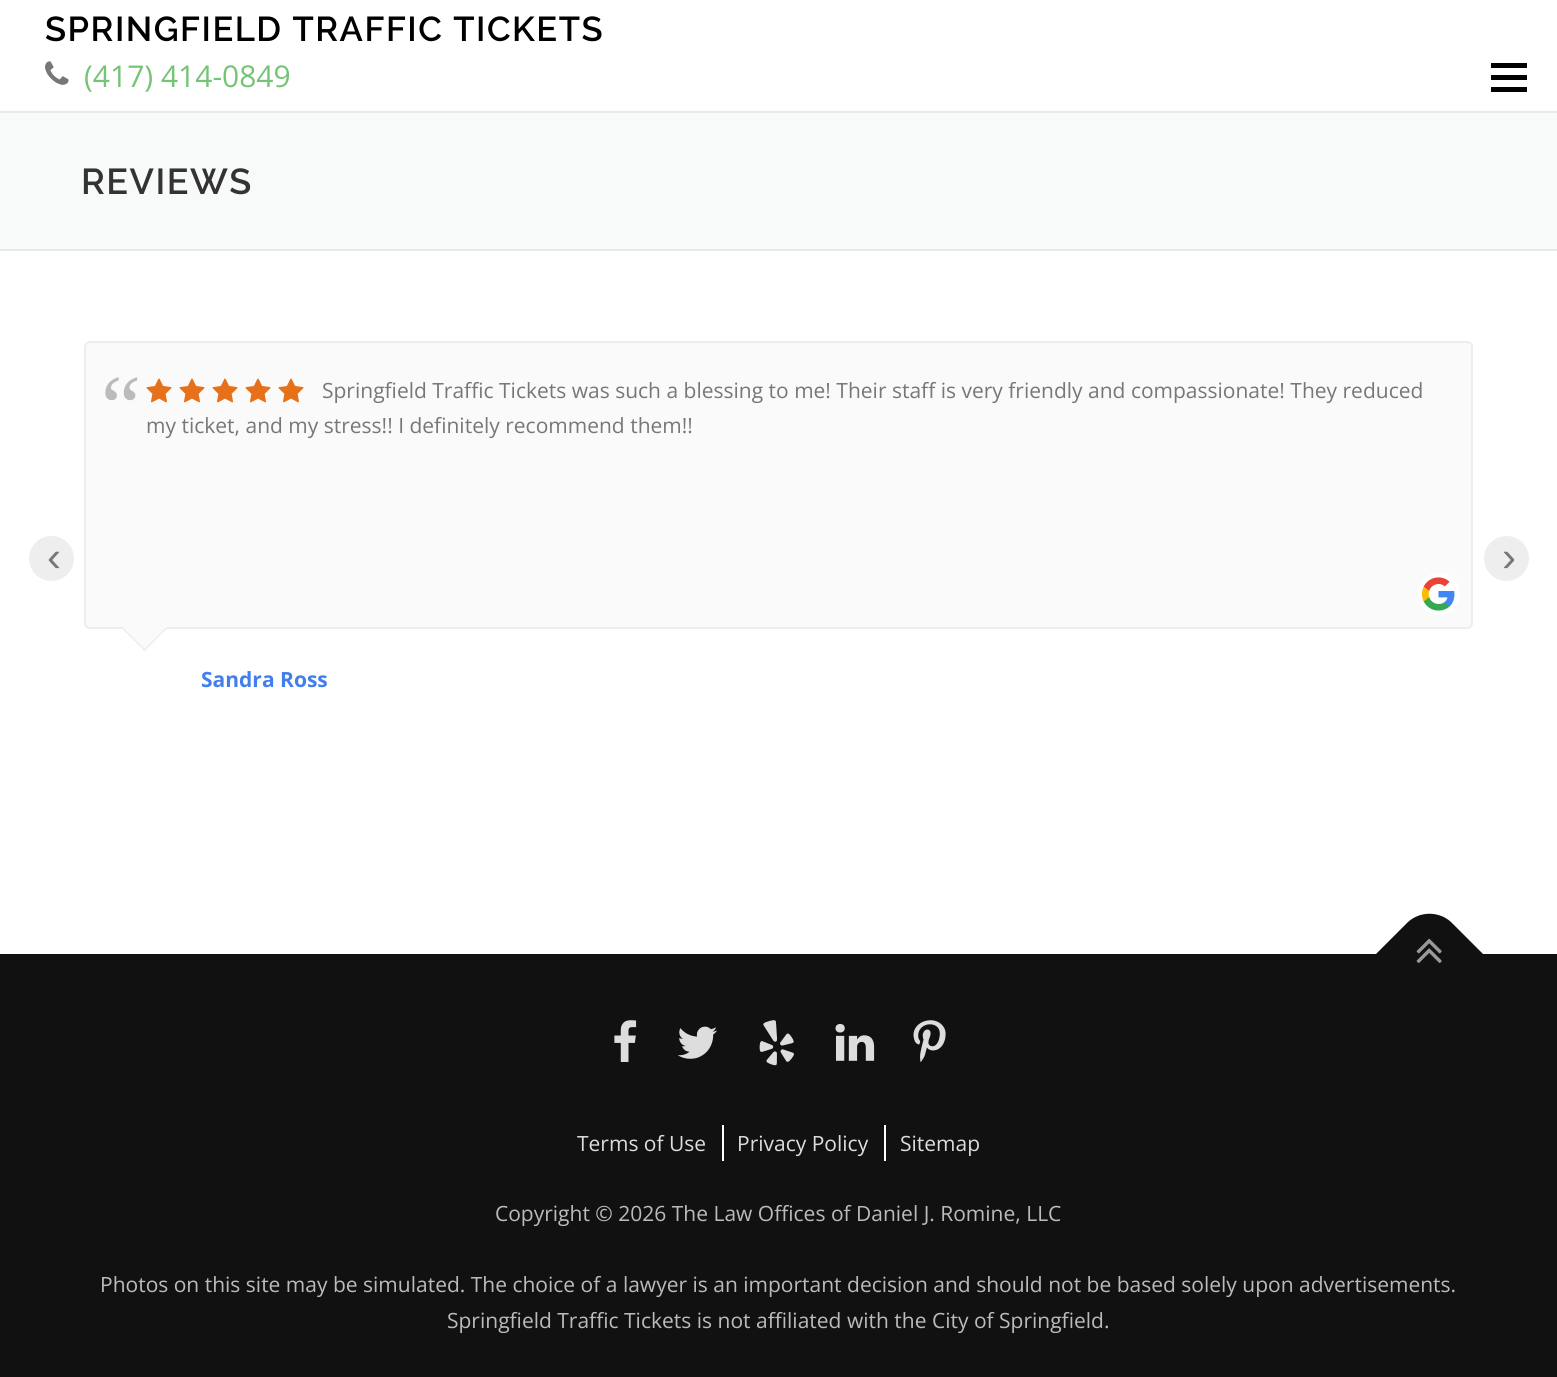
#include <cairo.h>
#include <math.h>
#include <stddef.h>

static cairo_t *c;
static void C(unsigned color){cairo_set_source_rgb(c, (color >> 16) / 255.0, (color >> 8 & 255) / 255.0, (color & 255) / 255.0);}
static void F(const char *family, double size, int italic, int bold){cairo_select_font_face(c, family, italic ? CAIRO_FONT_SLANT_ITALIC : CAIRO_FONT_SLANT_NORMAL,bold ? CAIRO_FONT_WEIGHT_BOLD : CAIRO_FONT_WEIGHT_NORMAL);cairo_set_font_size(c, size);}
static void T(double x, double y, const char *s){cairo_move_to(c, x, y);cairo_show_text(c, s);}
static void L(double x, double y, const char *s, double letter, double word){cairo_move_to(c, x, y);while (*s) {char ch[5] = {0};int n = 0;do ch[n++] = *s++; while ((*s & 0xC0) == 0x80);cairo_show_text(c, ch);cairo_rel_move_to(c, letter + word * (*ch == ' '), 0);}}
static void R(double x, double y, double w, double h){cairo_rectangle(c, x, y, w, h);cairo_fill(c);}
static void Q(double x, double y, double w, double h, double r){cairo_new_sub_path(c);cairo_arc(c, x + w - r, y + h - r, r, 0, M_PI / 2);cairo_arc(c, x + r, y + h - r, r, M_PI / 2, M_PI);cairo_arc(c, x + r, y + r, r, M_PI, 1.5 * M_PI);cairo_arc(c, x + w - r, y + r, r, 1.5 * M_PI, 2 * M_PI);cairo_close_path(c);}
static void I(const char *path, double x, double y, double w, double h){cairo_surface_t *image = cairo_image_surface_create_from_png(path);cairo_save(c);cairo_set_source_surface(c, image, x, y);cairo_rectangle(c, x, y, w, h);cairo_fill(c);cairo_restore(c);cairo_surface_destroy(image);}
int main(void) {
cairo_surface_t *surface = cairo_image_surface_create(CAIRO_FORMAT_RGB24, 1557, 1377);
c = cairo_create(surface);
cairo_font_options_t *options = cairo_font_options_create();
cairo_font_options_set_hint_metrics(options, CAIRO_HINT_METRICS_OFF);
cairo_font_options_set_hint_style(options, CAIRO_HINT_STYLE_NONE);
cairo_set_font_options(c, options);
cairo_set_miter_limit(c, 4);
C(0xffffff);
cairo_paint(c);
F("Raleway SemiBold",34.5,0,0);
C(0x000000);
L(45,41,"SPRINGFIELD TRAFFIC TICKETS",1.5,0);
I("1.png",45,61,24,24);
F("Open Sans",30,0,0);
C(0x74c475);
T(84,87,"(417) 414-0849");
C(0x000000);
R(1491,75,36,5);
R(1491,63,36,5);
R(1491,87,36,5);
C(0xf8f9f9);
R(0,113,1557,136);
C(0xe9e9e9);
R(0,111,1557,2);
R(0,249,1557,2);
F("Raleway SemiBold",36,0,0);
C(0x333333);
L(81,194,"REVIEWS",1.5,0);
C(0xeeeeee);
cairo_new_path(c);
cairo_arc(c,51.5,558.5,22.5,0,2 * M_PI);
cairo_fill(c);
F("Liberation Sans",42,0,0);
C(0x777777);
T(47,571,"‹");
C(0xfafafa);
Q(85,342,1387,286,5);
cairo_fill_preserve(c);
C(0xededed);
cairo_stroke(c);
F("Liberation Serif",90,0,0);
C(0xbbbbbb);
T(101,437,"“");
I("2.png",146,378,26,25);
I("2.png",179,378,26,25);
I("2.png",212,378,26,25);
I("2.png",245,378,26,25);
I("2.png",278,378,26,25);
F("Open Sans",21,0,0);
C(0x777777);
T(322,398,"Springfield Traffic Tickets was such a blessing to me! Their staff is very friendly and compassionate! They reduced");
T(146,433,"my ticket, and my stress!! I definitely recommend them!!");
C(0xffffff);
cairo_new_path(c);
cairo_arc(c,1439,594,21,0,2 * M_PI);
cairo_fill(c);
I("3.png",1421,577,34,34);
C(0xfafafa);
cairo_new_path(c);
cairo_move_to(c,145,606);
cairo_line_to(c,167,628);
cairo_line_to(c,145,651);
cairo_line_to(c,122,628);
cairo_close_path(c);
cairo_fill(c);
C(0xededed);
cairo_new_path(c);
cairo_move_to(c,166,627.5);
cairo_line_to(c,167,628.5);
cairo_line_to(c,144.5,651);
cairo_line_to(c,143.5,650);
cairo_close_path(c);
cairo_fill(c);
cairo_new_path(c);
cairo_move_to(c,123,627.5);
cairo_line_to(c,145.5,650);
cairo_line_to(c,144.5,651);
cairo_line_to(c,122,628.5);
cairo_close_path(c);
cairo_fill(c);
F("Open Sans",21,0,1);
C(0x427fed);
T(201,687,"Sandra Ross");
C(0xeeeeee);
cairo_new_path(c);
cairo_arc(c,1506.5,558.5,22.5,0,2 * M_PI);
cairo_fill(c);
F("Liberation Sans",42,0,0);
C(0x777777);
T(1502,571,"›");
C(0x111111);
R(0,954,1557,423);
cairo_new_path(c);
cairo_move_to(c,1376,954);
cairo_line_to(c,1408,922);
cairo_curve_to(c,1420,911,1439,911,1451,922);
cairo_line_to(c,1483,954);
cairo_line_to(c,1430,1007);
cairo_close_path(c);
cairo_fill(c);
I("4.png",1416,938,26,25);
I("5.png",614,1020,23,42);
I("6.png",677,1026,40,33);
I("7.png",759,1020,35,46);
I("8.png",835,1023,40,38);
I("9.png",913,1020,33,42);
C(0xffffff);
R(722,1125,2,36);
F("Open Sans",21,0,0);
C(0xdddddd);
T(577,1151,"Terms of Use");
C(0xffffff);
R(884,1125,2,36);
C(0xdddddd);
T(737,1151,"Privacy Policy");
T(900,1151,"Sitemap");
C(0xbbbbbb);
T(495,1221,"Copyright © 2026 The Law Offices of Daniel J. Romine, LLC");
T(100,1292,"Photos on this site may be simulated. The choice of a lawyer is an important decision and should not be based solely upon advertisements.");
T(447,1328,"Springfield Traffic Tickets is not affiliated with the City of Springfield.");
cairo_surface_write_to_png(surface, "o.png");
cairo_font_options_destroy(options);
cairo_destroy(c);
cairo_surface_destroy(surface);
return 0;
}
